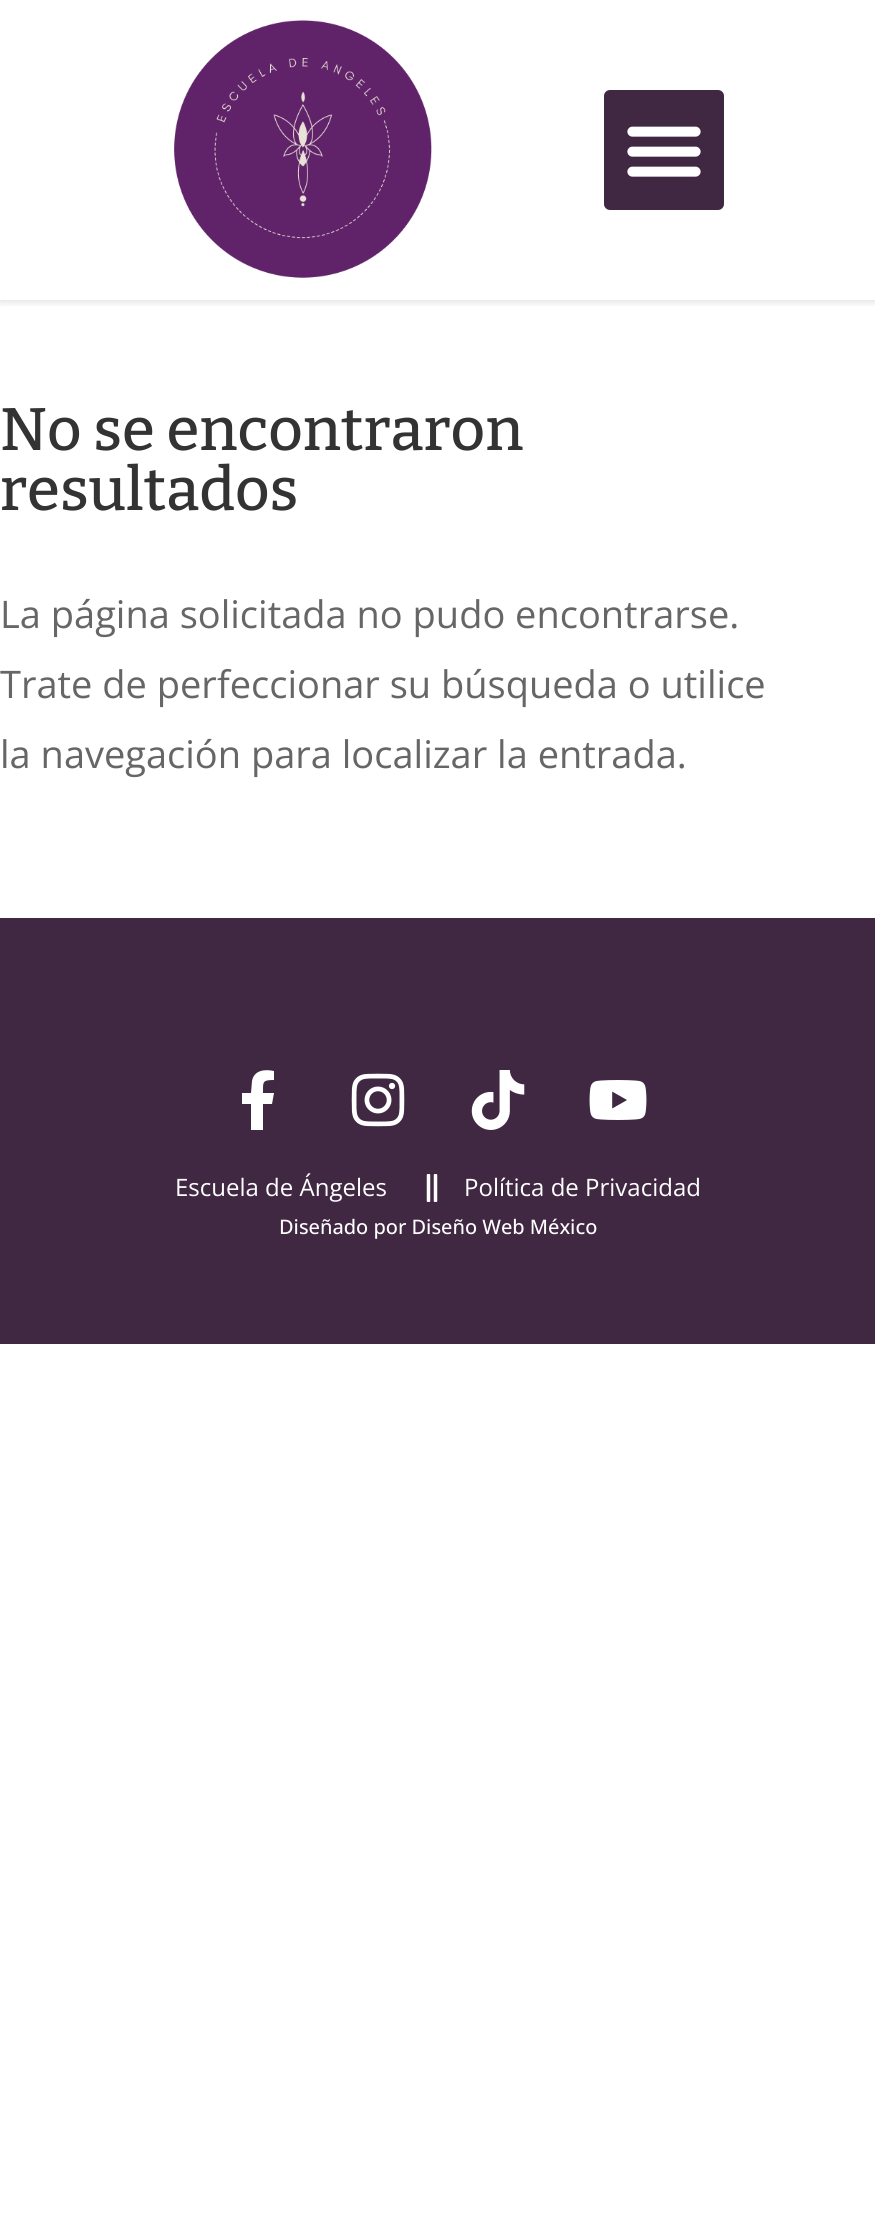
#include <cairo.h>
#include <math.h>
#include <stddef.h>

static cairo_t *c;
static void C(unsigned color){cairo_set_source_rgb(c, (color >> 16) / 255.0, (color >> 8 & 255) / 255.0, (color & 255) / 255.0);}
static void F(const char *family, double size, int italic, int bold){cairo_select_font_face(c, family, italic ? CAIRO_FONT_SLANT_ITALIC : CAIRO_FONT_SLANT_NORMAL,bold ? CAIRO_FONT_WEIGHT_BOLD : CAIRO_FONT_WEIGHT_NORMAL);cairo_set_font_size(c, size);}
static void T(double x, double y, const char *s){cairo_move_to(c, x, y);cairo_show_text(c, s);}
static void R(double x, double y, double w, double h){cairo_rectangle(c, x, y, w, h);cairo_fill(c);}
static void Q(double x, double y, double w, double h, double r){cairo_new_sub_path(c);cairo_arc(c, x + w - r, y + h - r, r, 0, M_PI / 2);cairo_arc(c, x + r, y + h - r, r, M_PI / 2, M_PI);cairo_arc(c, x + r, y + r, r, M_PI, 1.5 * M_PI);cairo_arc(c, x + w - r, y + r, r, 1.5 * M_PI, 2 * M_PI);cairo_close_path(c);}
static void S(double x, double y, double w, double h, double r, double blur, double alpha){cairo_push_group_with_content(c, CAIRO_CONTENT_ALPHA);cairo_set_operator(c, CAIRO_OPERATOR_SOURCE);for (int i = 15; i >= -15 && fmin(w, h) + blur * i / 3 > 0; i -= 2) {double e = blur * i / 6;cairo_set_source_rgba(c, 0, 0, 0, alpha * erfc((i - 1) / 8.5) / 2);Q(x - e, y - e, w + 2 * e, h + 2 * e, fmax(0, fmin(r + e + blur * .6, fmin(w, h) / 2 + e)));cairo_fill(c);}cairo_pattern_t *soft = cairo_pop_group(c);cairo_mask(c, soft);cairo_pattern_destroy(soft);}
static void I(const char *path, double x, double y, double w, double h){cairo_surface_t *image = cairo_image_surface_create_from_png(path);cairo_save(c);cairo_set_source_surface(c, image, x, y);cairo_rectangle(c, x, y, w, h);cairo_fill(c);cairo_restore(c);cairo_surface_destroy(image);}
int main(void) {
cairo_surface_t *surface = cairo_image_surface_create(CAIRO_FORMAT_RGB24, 875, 2229);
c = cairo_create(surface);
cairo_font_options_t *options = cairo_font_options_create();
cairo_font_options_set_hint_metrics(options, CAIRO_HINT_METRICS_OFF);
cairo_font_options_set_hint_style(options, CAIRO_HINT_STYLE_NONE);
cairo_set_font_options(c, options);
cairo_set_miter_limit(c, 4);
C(0xffffff);
cairo_paint(c);
cairo_save(c);
cairo_rectangle(c,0,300,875,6);
cairo_clip(c);
C(0x000000);
S(0,0,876,300,0,5,.18);
cairo_restore(c);
I("1.png",174,20,258,258);
C(0x402742);
Q(604,90,120,120,6);
cairo_fill(c);
I("2.png",627,126,74,51);
F("Bitter Medium",60,0,0);
C(0x333333);
T(0,450,"No se encontraron");
T(0,510,"resultados");
F("Open Sans",38,0,0);
C(0x666666);
T(0,628,"La página solicitada no pudo encontrarse.");
T(0,698,"Trate de perfeccionar su búsqueda o utilice");
T(0,768,"la navegación para localizar la entrada.");
C(0x402742);
R(0,918,875,426);
C(0xffffff);
cairo_new_path(c);
cairo_move_to(c,272,1104);
cairo_line_to(c,274,1093);
cairo_line_to(c,263,1093);
cairo_curve_to(c,263,1082,262,1080,274,1080);
cairo_line_to(c,274,1071);
cairo_curve_to(c,265,1069,254,1070,252,1081);
cairo_line_to(c,251,1093);
cairo_line_to(c,242,1093);
cairo_line_to(c,242,1104);
cairo_line_to(c,251,1104);
cairo_line_to(c,251,1130);
cairo_line_to(c,263,1130);
cairo_line_to(c,263,1104);
cairo_close_path(c);
cairo_fill(c);
I("3.png",351,1073,54,54);
I("4.png",471,1070,54,60);
I("5.png",589,1080,58,40);
F("Open Sans",24,0,0);
T(175,1196,"Escuela de Ángeles");
I("6.png",426,1174,12,28);
T(464,1196,"Política de Privacidad");
F("Open Sans Medium",20,0,0);
T(279,1234,"Diseñado por Diseño Web México");
cairo_surface_write_to_png(surface, "o.png");
cairo_font_options_destroy(options);
cairo_destroy(c);
cairo_surface_destroy(surface);
return 0;
}
